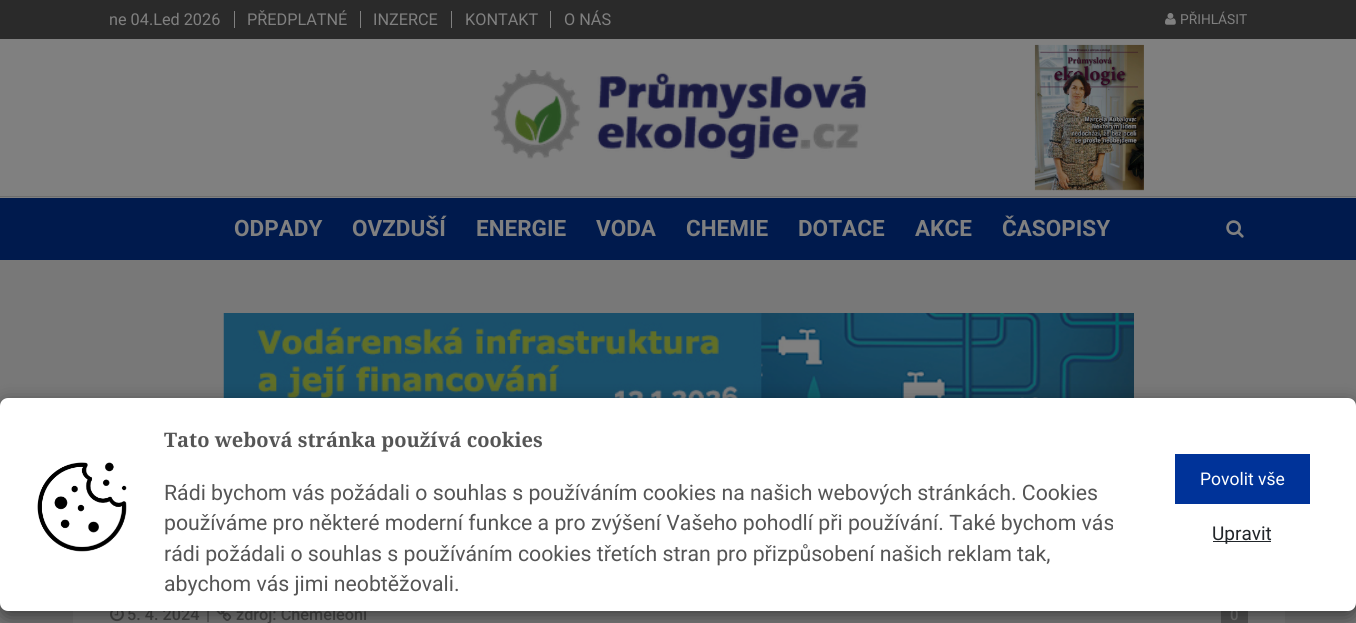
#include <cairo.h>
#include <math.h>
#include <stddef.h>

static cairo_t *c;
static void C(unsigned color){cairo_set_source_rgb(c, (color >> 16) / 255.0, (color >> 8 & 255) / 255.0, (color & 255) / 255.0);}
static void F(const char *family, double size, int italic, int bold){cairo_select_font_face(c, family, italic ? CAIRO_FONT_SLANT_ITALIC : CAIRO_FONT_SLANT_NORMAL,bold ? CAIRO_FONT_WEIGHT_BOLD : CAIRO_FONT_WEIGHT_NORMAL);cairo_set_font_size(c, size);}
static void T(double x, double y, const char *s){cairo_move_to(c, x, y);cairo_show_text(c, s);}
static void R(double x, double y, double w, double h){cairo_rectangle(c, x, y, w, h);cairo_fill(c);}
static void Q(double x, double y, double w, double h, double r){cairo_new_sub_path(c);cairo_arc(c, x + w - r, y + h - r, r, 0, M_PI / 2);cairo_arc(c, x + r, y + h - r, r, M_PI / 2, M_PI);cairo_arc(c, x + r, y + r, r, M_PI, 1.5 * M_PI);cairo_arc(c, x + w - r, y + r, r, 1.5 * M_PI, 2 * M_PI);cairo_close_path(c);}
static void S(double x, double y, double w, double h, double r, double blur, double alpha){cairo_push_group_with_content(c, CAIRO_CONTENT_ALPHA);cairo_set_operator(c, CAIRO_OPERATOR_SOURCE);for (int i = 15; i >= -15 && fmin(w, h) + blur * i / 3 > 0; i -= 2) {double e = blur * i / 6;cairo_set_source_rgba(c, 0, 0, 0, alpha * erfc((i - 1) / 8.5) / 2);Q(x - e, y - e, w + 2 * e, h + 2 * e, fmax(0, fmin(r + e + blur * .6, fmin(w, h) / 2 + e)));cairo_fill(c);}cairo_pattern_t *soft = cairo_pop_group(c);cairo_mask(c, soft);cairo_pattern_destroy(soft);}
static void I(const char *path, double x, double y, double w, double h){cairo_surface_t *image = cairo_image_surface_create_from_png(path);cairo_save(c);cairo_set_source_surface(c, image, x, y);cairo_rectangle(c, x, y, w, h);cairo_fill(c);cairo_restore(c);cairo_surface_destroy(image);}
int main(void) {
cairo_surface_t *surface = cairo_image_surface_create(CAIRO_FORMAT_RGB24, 1356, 623);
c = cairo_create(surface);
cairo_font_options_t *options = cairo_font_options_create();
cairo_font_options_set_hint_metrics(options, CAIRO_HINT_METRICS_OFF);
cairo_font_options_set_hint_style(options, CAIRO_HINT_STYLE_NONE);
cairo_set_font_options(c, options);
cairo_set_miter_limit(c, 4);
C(0x787878);
cairo_paint(c);
C(0x2a2a2a);
R(0,0,1356,39);
C(0x808080);
R(234,11,1,17);
F("Roboto",16.25,0,0);
T(109,25,"ne 04.Led 2026");
R(360,11,1,17);
T(247,25,"PŘEDPLATNÉ");
R(451,11,1,17);
T(373,25,"INZERCE");
R(550,11,1,17);
T(465,25,"KONTAKT");
T(564,25,"O NÁS");
I("1.png",1165,13,11,12);
F("Roboto",13.75,0,0);
T(1180,24,"PŘIHLÁSIT");
R(0,39,1356,159);
C(0x6d6d6d);
R(0,196,1356,1);
I("2.png",491,70,375,89);
I("3.png",1034,44,110,147);
C(0x001a4d);
R(0,198,1356,62);
F("Roboto",22.5,0,1);
C(0x808080);
T(234,236,"ODPADY");
T(352,236,"OVZDUŠÍ");
T(476,236,"ENERGIE");
T(596,236,"VODA");
T(686,236,"CHEMIE");
T(798,236,"DOTACE");
T(915,236,"AKCE");
T(1002,236,"ČASOPISY");
I("4.png",1226,220,18,18);
I("5.png",223,313,911,85);
R(73,611,1212,12);
I("6.png",110,611,14,11);
F("Roboto Medium",16.25,0,0);
C(0x4b4b4b);
T(127,620,"5. 4. 2024");
T(206,620,"|");
I("7.png",216,611,16,10);
T(236,620,"zdroj: Chemeleoni");
C(0x595959);
R(1221,611,27,12);
F("Roboto Medium",15,0,0);
C(0x808080);
T(1230,620,"0");
C(0x404040);
S(1269,531,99,75,2.5,3,1);
C(0x000000);
S(0,404,1356,214,8,9.5,.5);
C(0xffffff);
Q(0,398,1356,213,8);
cairo_fill(c);
I("8.png",37,462,90,90);
F("Noto Serif",20,0,1);
C(0x555555);
T(164,447,"Tato webová stránka používá cookies");
F("Roboto",21.25,0,0);
T(164,500,"Rádi bychom vás požádali o souhlas s používáním cookies na našich webových stránkách. Cookies");
T(164,530,"používáme pro některé moderní funkce a pro zvýšení Vašeho pohodlí při používání. Také bychom vás");
T(164,561,"rádi požádali o souhlas s používáním cookies třetích stran pro přizpůsobení našich reklam tak,");
T(164,591,"abychom vás jimi neobtěžovali.");
C(0x003399);
R(1175,454,135,50);
F("Roboto",17.5,0,0);
C(0xffffff);
T(1200,485,"Povolit vše");
C(0x212529);
R(1213,541,58,1);
F("Roboto",19,0,0);
T(1212,540,"Upravit");
cairo_surface_write_to_png(surface, "o.png");
cairo_font_options_destroy(options);
cairo_destroy(c);
cairo_surface_destroy(surface);
return 0;
}
